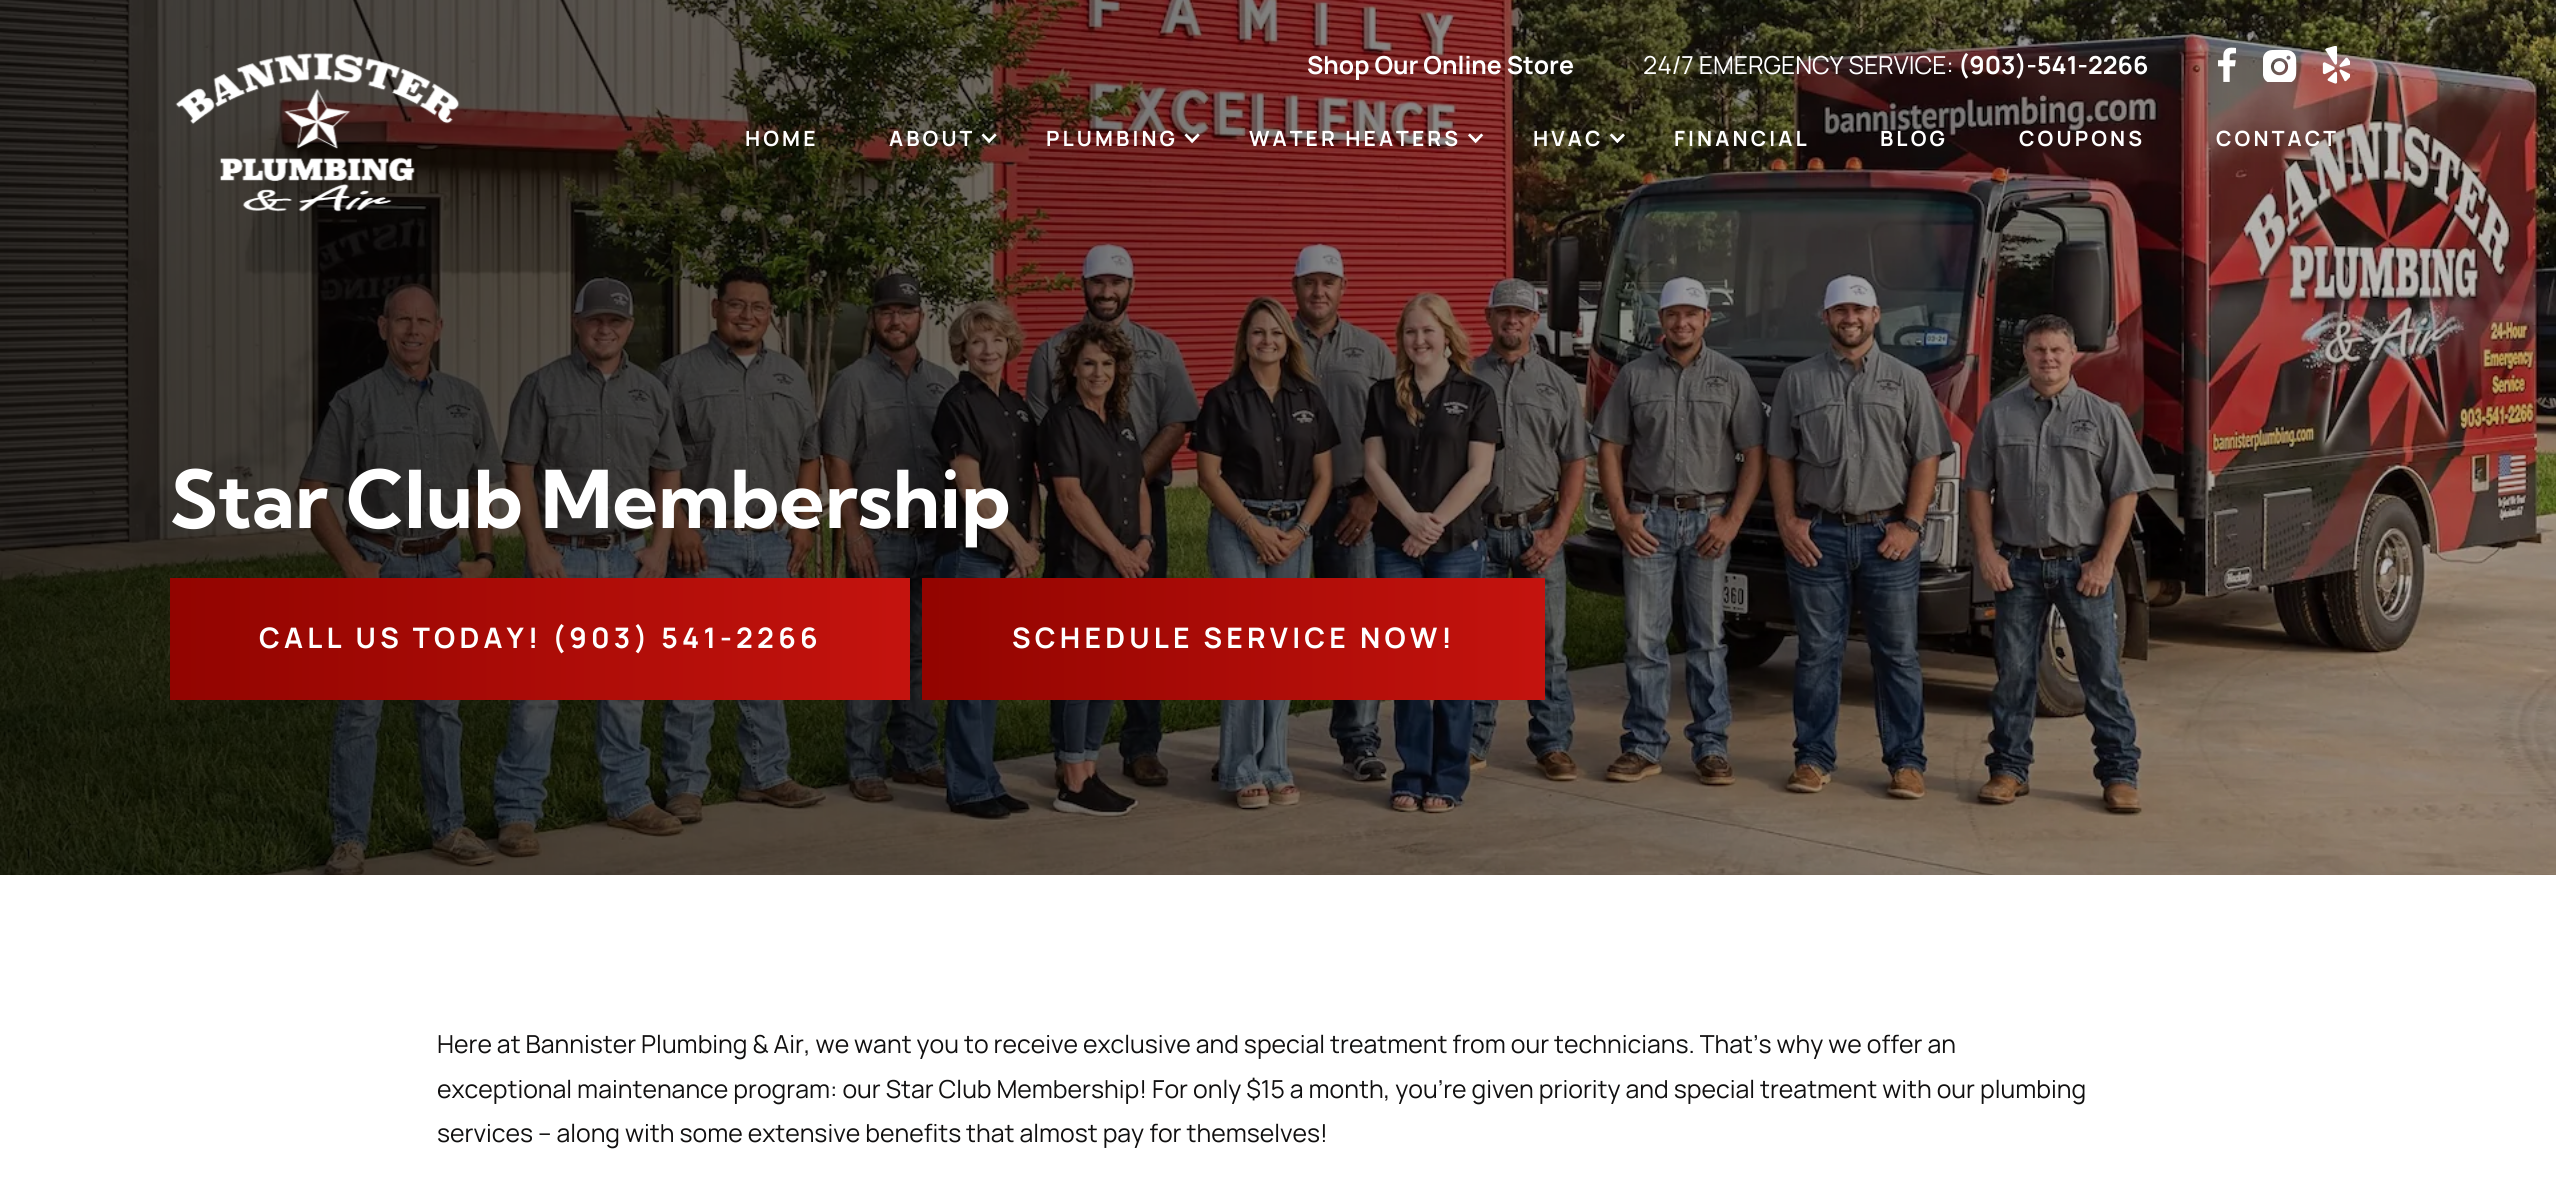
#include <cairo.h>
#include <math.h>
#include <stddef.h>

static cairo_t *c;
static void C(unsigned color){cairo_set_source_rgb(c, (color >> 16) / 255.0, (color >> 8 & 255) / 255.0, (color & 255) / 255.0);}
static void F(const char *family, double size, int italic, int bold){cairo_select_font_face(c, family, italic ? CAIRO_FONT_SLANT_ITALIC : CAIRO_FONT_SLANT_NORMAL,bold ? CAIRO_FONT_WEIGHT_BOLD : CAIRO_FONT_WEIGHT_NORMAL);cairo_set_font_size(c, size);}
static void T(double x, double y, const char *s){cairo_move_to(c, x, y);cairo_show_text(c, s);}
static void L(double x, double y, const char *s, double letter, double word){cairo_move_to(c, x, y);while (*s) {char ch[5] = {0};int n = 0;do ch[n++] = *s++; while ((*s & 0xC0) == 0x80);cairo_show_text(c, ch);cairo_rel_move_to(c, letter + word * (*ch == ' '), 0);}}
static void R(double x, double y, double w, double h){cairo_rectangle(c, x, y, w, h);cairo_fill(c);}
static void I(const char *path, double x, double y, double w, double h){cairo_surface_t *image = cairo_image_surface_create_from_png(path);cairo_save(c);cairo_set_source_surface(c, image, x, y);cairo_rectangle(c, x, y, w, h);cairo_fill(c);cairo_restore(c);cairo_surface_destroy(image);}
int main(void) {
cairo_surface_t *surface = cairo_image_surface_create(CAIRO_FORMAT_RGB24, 2556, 1180);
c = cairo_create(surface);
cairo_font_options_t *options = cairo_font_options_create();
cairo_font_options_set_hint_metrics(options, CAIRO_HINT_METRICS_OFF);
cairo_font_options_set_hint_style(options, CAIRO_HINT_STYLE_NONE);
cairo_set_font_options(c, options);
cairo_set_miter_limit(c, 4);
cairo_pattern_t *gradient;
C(0xffffff);
cairo_paint(c);
I("1.png",0,0,2556,875);
I("2.png",175,53,285,159);
F("Manrope",24.8,0,1);
C(0xffffff);
T(1307,74,"Shop Our Online Store");
F("Manrope",24.8,0,0);
T(1643,74,"24/7 EMERGENCY SERVICE:");
F("Manrope",24.8,0,1);
T(1958,74,"(903)-541-2266");
I("3.png",2218,47,18,35);
I("4.png",2263,49,34,33);
I("5.png",2322,46,28,38);
F("Manrope",21,0,1);
L(745,146,"HOME",3.1,0);
L(889,146,"ABOUT",3.1,0);
I("6.png",981,133,16,11);
L(1046,146,"PLUMBING",3.1,0);
I("7.png",1184,133,16,11);
L(1249,146,"WATER HEATERS",3.1,0);
I("8.png",1468,133,16,11);
L(1533,146,"HVAC",3.1,0);
I("9.png",1609,133,16,11);
L(1674,146,"FINANCIAL",3.1,0);
L(1880,146,"BLOG",3.1,0);
L(2019,146,"COUPONS",3.1,0);
L(2216,146,"CONTACT",3.1,0);
F("Kumbh Sans",79.6,0,1);
T(170,528,"Star Club Membership");
gradient = cairo_pattern_create_linear(170,639,910,639);
cairo_pattern_add_color_stop_rgba(gradient,0,0.573,0.016,0,1);
cairo_pattern_add_color_stop_rgba(gradient,1,0.769,0.075,0.055,1);
cairo_set_source(c,gradient);
cairo_pattern_destroy(gradient);
R(170,578,740,122);
F("Manrope",28.25,0,1);
C(0xffffff);
L(259,648,"CALL US TODAY! (903) 541-2266",4.2,0);
gradient = cairo_pattern_create_linear(922,639,1545,639);
cairo_pattern_add_color_stop_rgba(gradient,0,0.573,0.016,0,1);
cairo_pattern_add_color_stop_rgba(gradient,1,0.769,0.075,0.055,1);
cairo_set_source(c,gradient);
cairo_pattern_destroy(gradient);
R(922,578,623,122);
C(0xffffff);
L(1012,648,"SCHEDULE SERVICE NOW!",4.2,0);
F("Manrope",24.8,0,0);
C(0x111010);
T(437,1053,"Here at Bannister Plumbing & Air, we want you to receive exclusive and special treatment from our technicians. That’s why we offer an");
T(437,1098,"exceptional maintenance program: our Star Club Membership! For only $15 a month, you’re given priority and special treatment with our plumbing");
T(437,1142,"services – along with some extensive benefits that almost pay for themselves!");
cairo_surface_write_to_png(surface, "o.png");
cairo_font_options_destroy(options);
cairo_destroy(c);
cairo_surface_destroy(surface);
return 0;
}
